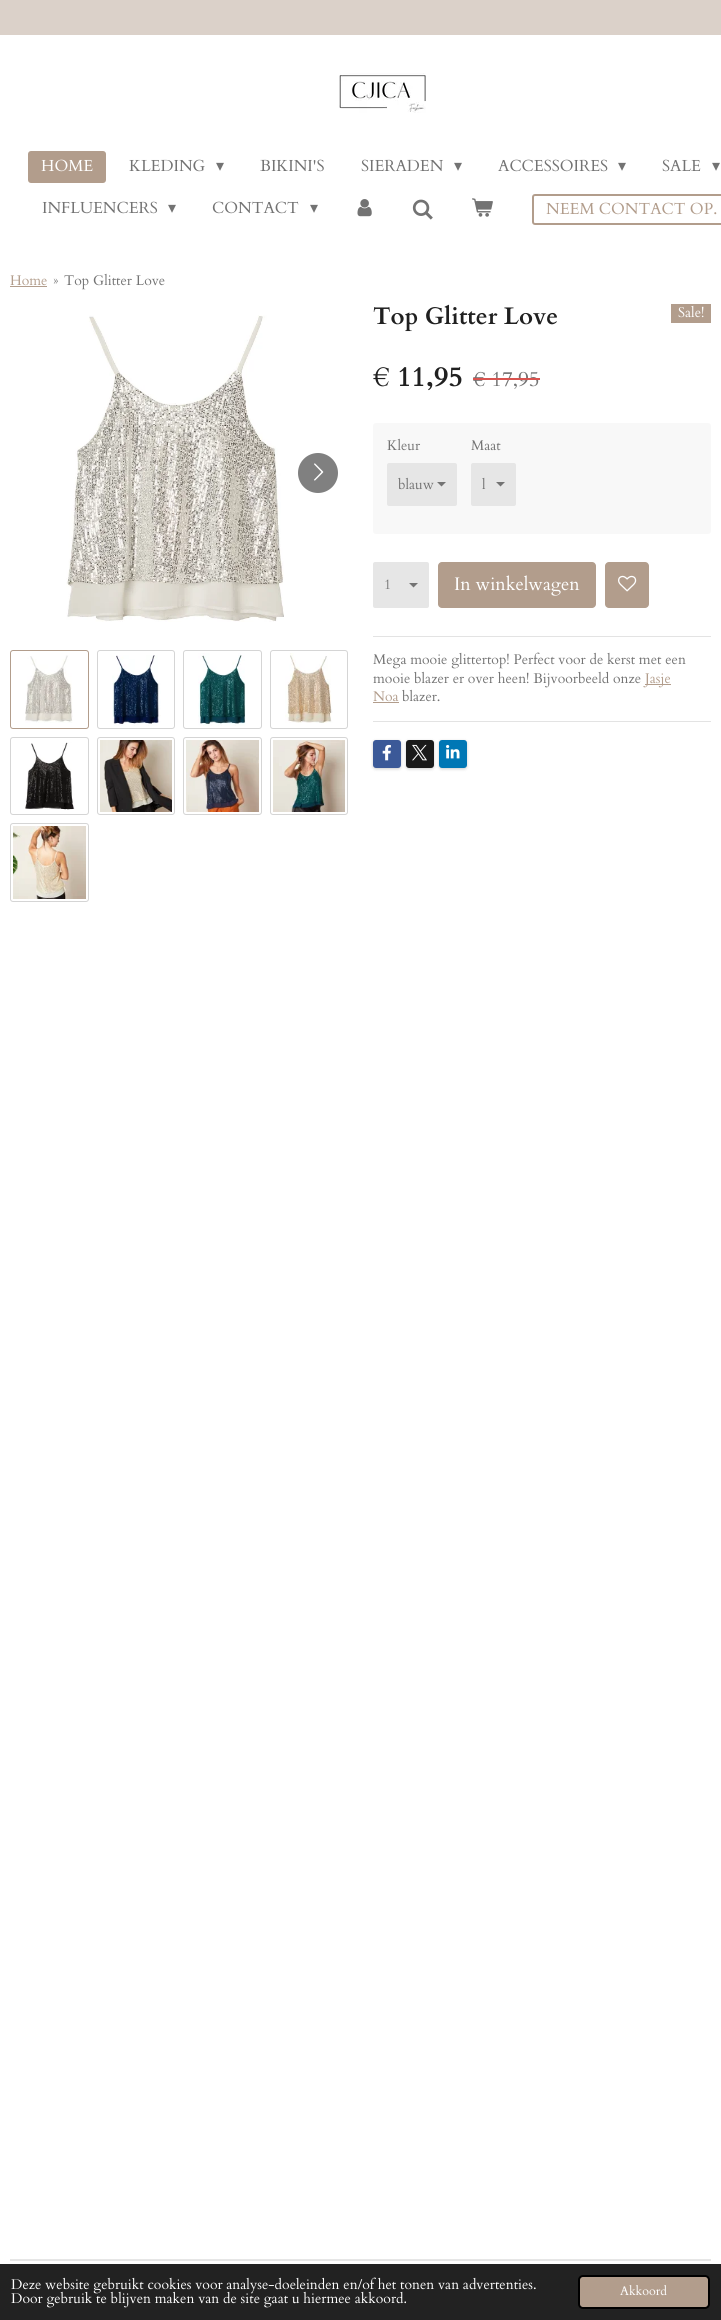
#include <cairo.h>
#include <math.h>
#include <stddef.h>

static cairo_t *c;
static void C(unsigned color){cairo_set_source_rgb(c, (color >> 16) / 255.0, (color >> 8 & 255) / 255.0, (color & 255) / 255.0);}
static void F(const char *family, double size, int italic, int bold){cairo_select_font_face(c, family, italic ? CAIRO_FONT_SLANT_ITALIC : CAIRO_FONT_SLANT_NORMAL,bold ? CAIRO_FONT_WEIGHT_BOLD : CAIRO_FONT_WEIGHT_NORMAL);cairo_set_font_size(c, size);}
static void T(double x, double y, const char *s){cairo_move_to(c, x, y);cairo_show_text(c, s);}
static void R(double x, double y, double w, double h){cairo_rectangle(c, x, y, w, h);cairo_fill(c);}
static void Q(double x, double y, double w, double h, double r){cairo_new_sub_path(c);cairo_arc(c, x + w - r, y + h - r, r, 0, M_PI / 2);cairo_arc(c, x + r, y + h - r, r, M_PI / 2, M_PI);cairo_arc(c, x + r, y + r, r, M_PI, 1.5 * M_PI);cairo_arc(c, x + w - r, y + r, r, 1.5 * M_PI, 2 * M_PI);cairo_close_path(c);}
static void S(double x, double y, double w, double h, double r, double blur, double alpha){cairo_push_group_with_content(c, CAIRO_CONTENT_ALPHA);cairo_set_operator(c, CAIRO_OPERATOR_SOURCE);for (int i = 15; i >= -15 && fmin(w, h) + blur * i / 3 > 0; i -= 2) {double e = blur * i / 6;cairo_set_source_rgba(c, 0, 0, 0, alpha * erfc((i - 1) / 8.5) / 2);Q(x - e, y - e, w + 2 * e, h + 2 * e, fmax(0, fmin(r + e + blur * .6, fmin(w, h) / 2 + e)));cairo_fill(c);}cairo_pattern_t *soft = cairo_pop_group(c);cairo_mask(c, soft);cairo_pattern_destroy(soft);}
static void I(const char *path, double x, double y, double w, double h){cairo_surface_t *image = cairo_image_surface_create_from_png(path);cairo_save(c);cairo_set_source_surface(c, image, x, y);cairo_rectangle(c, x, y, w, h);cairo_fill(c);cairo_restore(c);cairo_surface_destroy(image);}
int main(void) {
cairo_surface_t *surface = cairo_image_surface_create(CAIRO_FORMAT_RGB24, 721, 2320);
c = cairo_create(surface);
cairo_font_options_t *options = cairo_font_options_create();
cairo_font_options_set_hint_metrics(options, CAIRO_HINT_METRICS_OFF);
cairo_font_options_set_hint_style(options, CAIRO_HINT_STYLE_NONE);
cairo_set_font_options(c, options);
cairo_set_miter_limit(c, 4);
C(0xffffff);
cairo_paint(c);
C(0xdbd1c9);
R(0,0,721,35);
I("1.png",339,73,87,40);
C(0xb29d8c);
Q(28,151,78,32,3);
cairo_fill(c);
F("Cardo",16,0,0);
C(0xffffff);
T(41,171,"HOME");
C(0x737373);
T(129,171,"KLEDING");
F("DejaVu Sans",16,0,0);
T(216,171,"▾");
F("Cardo",16,0,0);
T(260,171,"BIKINI'S");
T(361,171,"SIERADEN");
F("DejaVu Sans",16,0,0);
T(454,171,"▾");
F("Cardo",16,0,0);
T(498,171,"ACCESSOIRES");
F("DejaVu Sans",16,0,0);
T(618,171,"▾");
F("Cardo",16,0,0);
T(662,171,"SALE");
F("DejaVu Sans",16,0,0);
T(712,171,"▾");
F("Cardo",16,0,0);
T(42,213,"INFLUENCERS");
F("DejaVu Sans",16,0,0);
T(168,213,"▾");
F("Cardo",16,0,0);
T(212,213,"CONTACT");
F("DejaVu Sans",16,0,0);
T(310,213,"▾");
I("2.png",357,199,15,18);
I("3.png",412,199,21,21);
I("4.png",472,198,21,19);
Q(533,195,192,29,2);
C(0xb29d8c);
cairo_stroke(c);
F("Cardo",16,0,0);
T(546,214,"NEEM CONTACT OP.");
F("Cardo",14,0,0);
T(10,285,"Home");
R(10,286,37,1);
C(0x737373);
T(53,285,"»");
T(64,285,"Top Glitter Love");
I("5.png",66,315,218,307);
C(0x808080);
cairo_arc(c,318,473,20,0,2 * M_PI);
cairo_fill(c);
I("6.png",314,463,10,18);
Q(10.5,650.5,78,78,2.5);
C(0xb29d8c);
cairo_set_line_width(c,1);
cairo_stroke(c);
I("7.png",25,655,48,68);
Q(97.5,650.5,77,78,2.5);
C(0xd5d5d5);
cairo_stroke(c);
I("8.png",112,655,49,71);
Q(183.5,650.5,78,78,2.5);
cairo_stroke(c);
I("9.png",198,653,48,73);
Q(270.5,650.5,77,78,2.5);
cairo_stroke(c);
I("10.png",285,653,48,70);
Q(10.5,737.5,78,77,2.5);
cairo_stroke(c);
I("11.png",25,742,50,68);
Q(97.5,737.5,77,77,2.5);
cairo_stroke(c);
I("12.png",100,740,72,72);
Q(183.5,737.5,78,77,2.5);
cairo_stroke(c);
I("13.png",186,740,73,72);
Q(270.5,737.5,77,77,2.5);
cairo_stroke(c);
I("14.png",273,740,72,72);
Q(10.5,823.5,78,78,2.5);
cairo_stroke(c);
I("15.png",13,826,73,73);
F("Cardo",24,0,1);
C(0x202020);
T(373,324,"Top Glitter Love");
C(0xb29d8c);
R(671,304,40,19);
F("Cardo",14,0,0);
C(0xffffff);
T(678,317,"Sale!");
F("Cardo",28,0,1);
C(0x202020);
T(373,386,"€ 11,95");
F("Cardo",21,0,0);
C(0x737373);
T(473,386,"€ 17,95");
C(0xd9534f);
R(473,378,67,2);
C(0xf8f8f8);
Q(373,423,338,111,3);
cairo_fill(c);
F("Cardo",14,0,0);
C(0x737373);
T(387,450,"Kleur");
C(0xe6e6e6);
Q(387,463,70,43,2);
cairo_fill(c);
C(0x737373);
cairo_new_path(c);
cairo_move_to(c,441.5,486.5);
cairo_line_to(c,437,482);
cairo_line_to(c,446,482);
cairo_close_path(c);
cairo_fill(c);
T(398,489,"blauw");
T(471,450,"Maat");
C(0xe6e6e6);
Q(471,463,45,43,2);
cairo_fill(c);
C(0x737373);
cairo_new_path(c);
cairo_move_to(c,500.5,486.5);
cairo_line_to(c,496,482);
cairo_line_to(c,505,482);
cairo_close_path(c);
cairo_fill(c);
T(482,489,"l");
C(0xe6e6e6);
Q(373,562,56,46,2);
cairo_fill(c);
C(0x737373);
cairo_new_path(c);
cairo_move_to(c,413.5,587.5);
cairo_line_to(c,409,583);
cairo_line_to(c,418,583);
cairo_close_path(c);
cairo_fill(c);
T(384,589,"1");
C(0xb29d8c);
Q(438,562,158,46,4);
cairo_fill(c);
F("Cardo",18.25,0,0);
C(0xffffff);
T(454,590,"In winkelwagen");
C(0xb29d8c);
Q(605,562,44,46,4);
cairo_fill(c);
I("16.png",618,575,19,17);
C(0xe3e3e3);
R(373,636,338,1);
F("Cardo",14,0,0);
C(0x737373);
T(373,664,"Mega mooie glittertop! Perfect voor de kerst met een");
T(373,683,"mooie blazer er over heen! Bijvoorbeeld onze");
C(0xb29d8c);
R(645,684,26,1);
T(645,683,"Jasje");
T(373,701,"Noa");
R(373,702,26,1);
C(0x737373);
T(402,701,"blazer.");
C(0xe3e3e3);
R(373,721,338,1);
C(0x000000);
S(373,741,28,28,3,1.5,.2);
C(0x3b5998);
Q(373,740,28,28,3);
cairo_fill(c);
I("17.png",382,744,9,17);
C(0x000000);
S(406,741,28,28,3,1.5,.2);
C(0x1a1a1a);
Q(406,740,28,28,3);
cairo_fill(c);
I("18.png",412,744,15,17);
C(0x000000);
S(439,741,28,28,3,1.5,.2);
C(0x0077b5);
Q(439,740,28,28,3);
cairo_fill(c);
I("19.png",446,744,14,15);
C(0xe6e6e6);
R(10,2259,701,2);
C(0x222222);
R(0,2264,721,56);
C(0xffffff);
T(11,2289,"Deze website gebruikt cookies voor analyse-doeleinden en/of het tonen van advertenties.");
T(11,2303,"Door gebruik te blijven maken van de site gaat u hiermee akkoord.");
C(0xb29d8c);
Q(579,2276,130,32,4);
cairo_fill_preserve(c);
C(0x000000);
cairo_set_line_width(c,2);
cairo_stroke(c);
F("Cardo",12.5,0,0);
C(0xffffff);
T(620,2295,"Akkoord");
cairo_surface_write_to_png(surface, "o.png");
cairo_font_options_destroy(options);
cairo_destroy(c);
cairo_surface_destroy(surface);
return 0;
}
